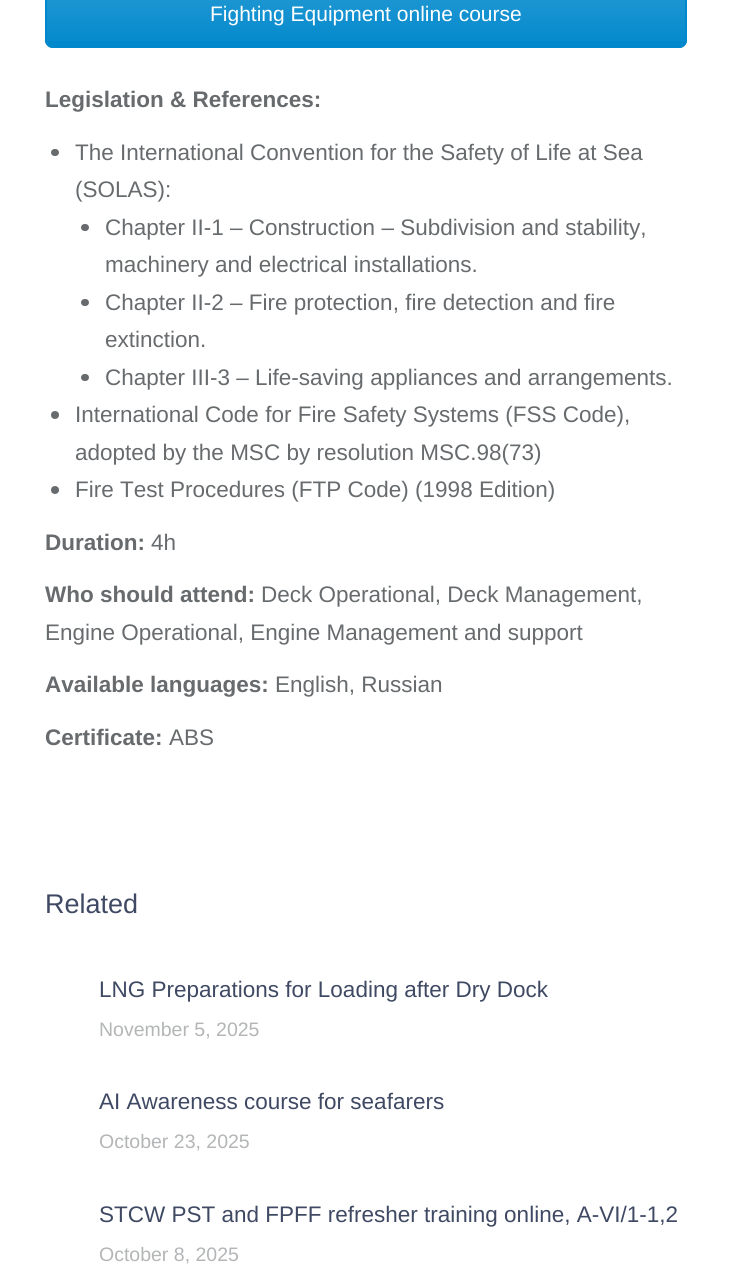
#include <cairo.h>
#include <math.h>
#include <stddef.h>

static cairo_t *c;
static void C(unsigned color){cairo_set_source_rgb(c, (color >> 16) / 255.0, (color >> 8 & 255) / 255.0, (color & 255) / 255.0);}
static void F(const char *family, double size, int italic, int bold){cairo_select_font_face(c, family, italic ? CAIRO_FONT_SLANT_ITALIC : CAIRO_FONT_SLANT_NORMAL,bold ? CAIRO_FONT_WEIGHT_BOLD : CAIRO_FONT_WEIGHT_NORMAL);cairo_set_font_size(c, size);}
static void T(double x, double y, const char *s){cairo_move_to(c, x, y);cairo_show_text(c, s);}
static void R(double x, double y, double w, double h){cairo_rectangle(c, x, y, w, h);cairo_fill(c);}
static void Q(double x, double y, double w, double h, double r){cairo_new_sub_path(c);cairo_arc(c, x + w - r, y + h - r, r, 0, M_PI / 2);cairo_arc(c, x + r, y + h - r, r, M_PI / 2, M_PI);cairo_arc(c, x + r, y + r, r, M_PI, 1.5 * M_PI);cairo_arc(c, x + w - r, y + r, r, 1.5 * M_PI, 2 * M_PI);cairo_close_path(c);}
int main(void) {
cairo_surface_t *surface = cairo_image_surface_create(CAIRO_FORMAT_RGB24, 732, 1272);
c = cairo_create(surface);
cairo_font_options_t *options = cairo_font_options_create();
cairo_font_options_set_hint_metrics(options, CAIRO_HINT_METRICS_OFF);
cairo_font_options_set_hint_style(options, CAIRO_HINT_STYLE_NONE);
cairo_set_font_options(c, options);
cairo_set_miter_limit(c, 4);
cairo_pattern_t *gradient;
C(0xffffff);
cairo_paint(c);
C(0x0088cc);
Q(45,-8,642,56,8);
cairo_fill(c);
gradient = cairo_pattern_create_linear(366,-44,366,47);
cairo_pattern_add_color_stop_rgba(gradient,0,1,1,1,.2);
cairo_pattern_add_color_stop_rgba(gradient,1,1,1,1,.01);
cairo_set_source(c,gradient);
cairo_pattern_destroy(gradient);
R(45,0,642,41);
Q(46,-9,640,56,7);
C(0x0088cc);
cairo_stroke(c);
F("Liberation Sans",21,0,0);
C(0xffffff);
T(210,21,"Fighting Equipment online course");
F("Liberation Sans",22.5,0,1);
C(0x676b6d);
T(45,107,"Legislation & References:");
Q(51,149,8,7,3.5);
cairo_fill(c);
F("Liberation Sans",22.5,0,0);
T(75,160,"The International Convention for the Safety of Life at Sea");
T(75,197,"(SOLAS):");
Q(81,224,8,7,3.5);
cairo_fill(c);
T(105,235,"Chapter II-1 – Construction – Subdivision and stability,");
T(105,272,"machinery and electrical installations.");
Q(81,299,8,7,3.5);
cairo_fill(c);
T(105,310,"Chapter II-2 – Fire protection, fire detection and fire");
T(105,347,"extinction.");
Q(81,374,8,7,3.5);
cairo_fill(c);
T(105,385,"Chapter III-3 – Life-saving appliances and arrangements.");
cairo_new_path(c);
cairo_arc(c,55,415,4,0,2 * M_PI);
cairo_fill(c);
T(75,422,"International Code for Fire Safety Systems (FSS Code),");
T(75,460,"adopted by the MSC by resolution MSC.98(73)");
cairo_new_path(c);
cairo_arc(c,55,490,4,0,2 * M_PI);
cairo_fill(c);
T(75,497,"Fire Test Procedures (FTP Code) (1998 Edition)");
F("Liberation Sans",22.5,0,1);
T(45,550,"Duration:");
F("Liberation Sans",22.5,0,0);
T(151,550,"4h");
F("Liberation Sans",22.5,0,1);
T(45,602,"Who should attend:");
F("Liberation Sans",22.5,0,0);
T(261,602,"Deck Operational, Deck Management,");
T(45,640,"Engine Operational, Engine Management and support");
F("Liberation Sans",22.5,0,1);
T(45,692,"Available languages:");
F("Liberation Sans",22.5,0,0);
T(275,692,"English, Russian");
F("Liberation Sans",22.5,0,1);
T(45,745,"Certificate:");
F("Liberation Sans",22.5,0,0);
T(169,745,"ABS");
F("Liberation Sans",27,0,0);
C(0x3f4963);
T(45,913,"Related");
F("Liberation Sans",22.5,0,0);
T(99,997,"LNG Preparations for Loading after Dry Dock");
F("Liberation Sans",19.5,0,0);
C(0xb3b5b6);
T(99,1036,"November 5, 2025");
F("Liberation Sans",22.5,0,0);
C(0x3f4963);
T(99,1109,"AI Awareness course for seafarers");
F("Liberation Sans",19.5,0,0);
C(0xb3b5b6);
T(99,1148,"October 23, 2025");
F("Liberation Sans",22.5,0,0);
C(0x3f4963);
T(99,1222,"STCW PST and FPFF refresher training online, A-VI/1-1,2");
F("Liberation Sans",19.5,0,0);
C(0xb3b5b6);
T(99,1261,"October 8, 2025");
cairo_surface_write_to_png(surface, "o.png");
cairo_font_options_destroy(options);
cairo_destroy(c);
cairo_surface_destroy(surface);
return 0;
}
